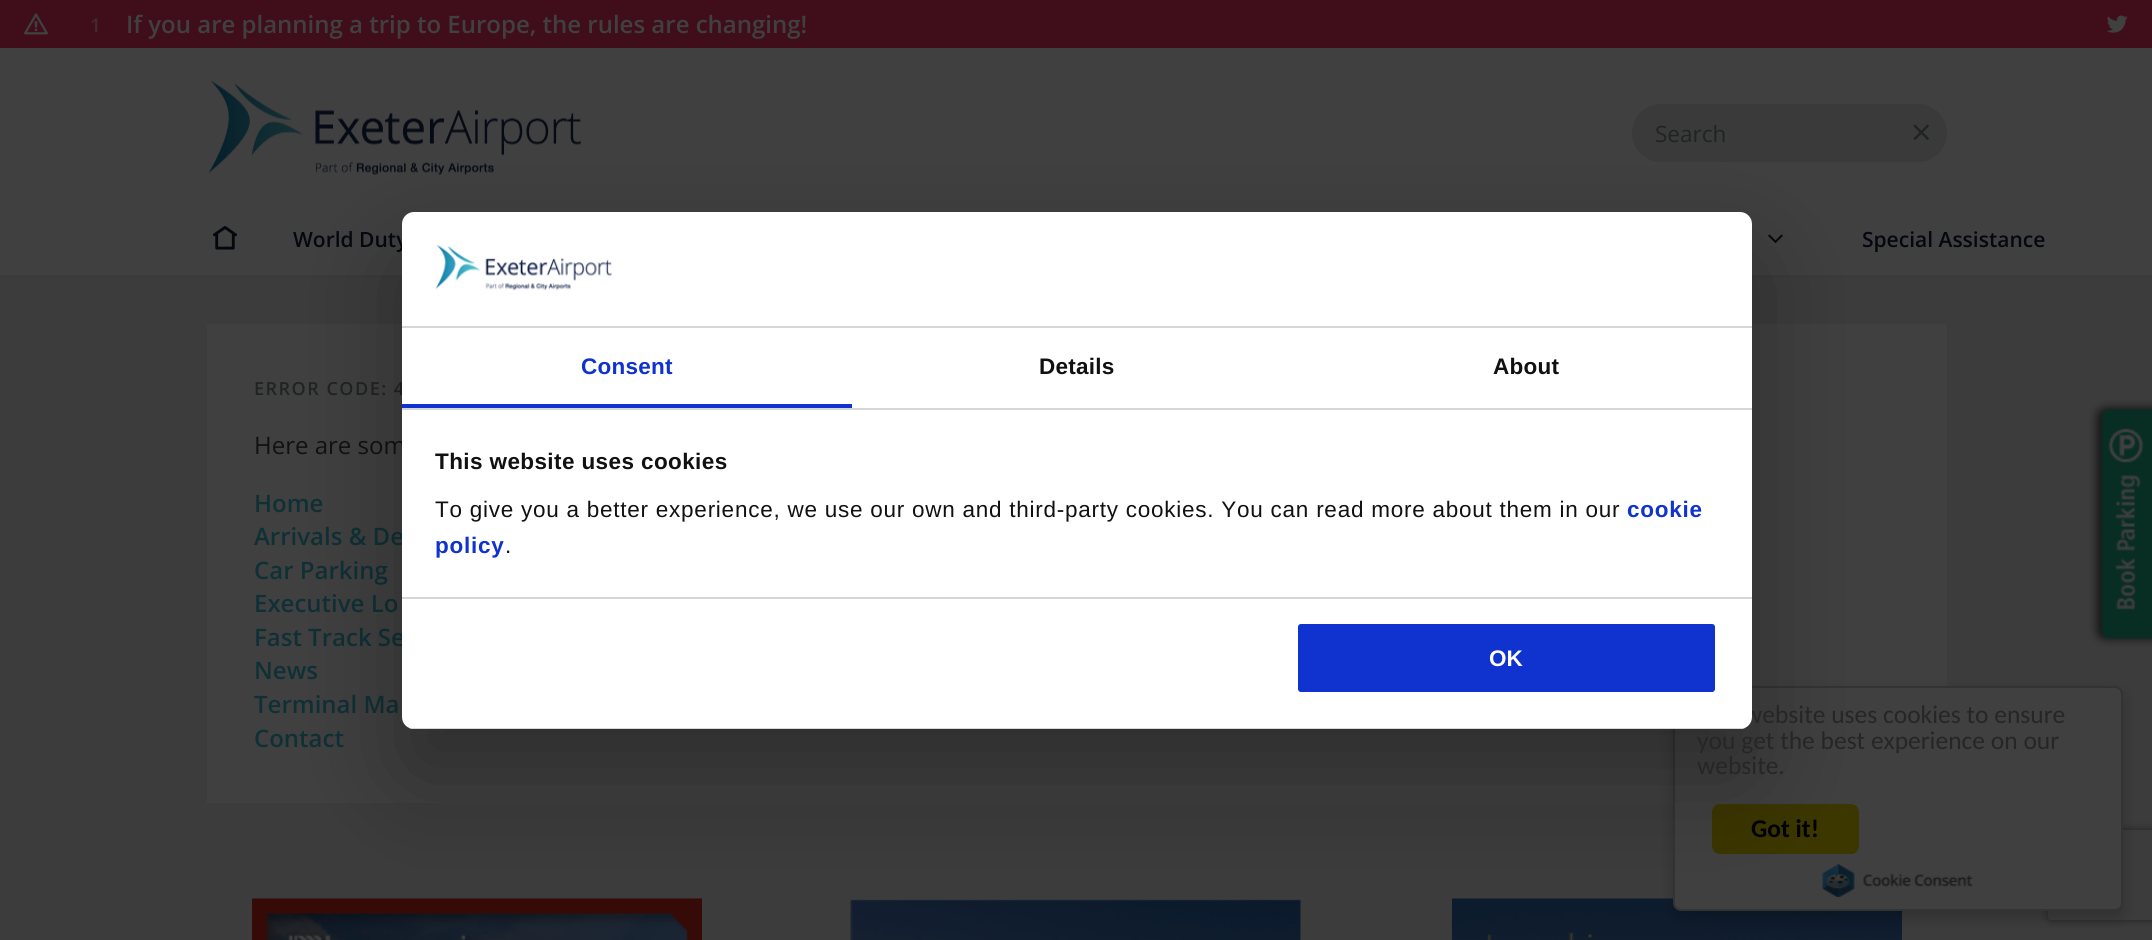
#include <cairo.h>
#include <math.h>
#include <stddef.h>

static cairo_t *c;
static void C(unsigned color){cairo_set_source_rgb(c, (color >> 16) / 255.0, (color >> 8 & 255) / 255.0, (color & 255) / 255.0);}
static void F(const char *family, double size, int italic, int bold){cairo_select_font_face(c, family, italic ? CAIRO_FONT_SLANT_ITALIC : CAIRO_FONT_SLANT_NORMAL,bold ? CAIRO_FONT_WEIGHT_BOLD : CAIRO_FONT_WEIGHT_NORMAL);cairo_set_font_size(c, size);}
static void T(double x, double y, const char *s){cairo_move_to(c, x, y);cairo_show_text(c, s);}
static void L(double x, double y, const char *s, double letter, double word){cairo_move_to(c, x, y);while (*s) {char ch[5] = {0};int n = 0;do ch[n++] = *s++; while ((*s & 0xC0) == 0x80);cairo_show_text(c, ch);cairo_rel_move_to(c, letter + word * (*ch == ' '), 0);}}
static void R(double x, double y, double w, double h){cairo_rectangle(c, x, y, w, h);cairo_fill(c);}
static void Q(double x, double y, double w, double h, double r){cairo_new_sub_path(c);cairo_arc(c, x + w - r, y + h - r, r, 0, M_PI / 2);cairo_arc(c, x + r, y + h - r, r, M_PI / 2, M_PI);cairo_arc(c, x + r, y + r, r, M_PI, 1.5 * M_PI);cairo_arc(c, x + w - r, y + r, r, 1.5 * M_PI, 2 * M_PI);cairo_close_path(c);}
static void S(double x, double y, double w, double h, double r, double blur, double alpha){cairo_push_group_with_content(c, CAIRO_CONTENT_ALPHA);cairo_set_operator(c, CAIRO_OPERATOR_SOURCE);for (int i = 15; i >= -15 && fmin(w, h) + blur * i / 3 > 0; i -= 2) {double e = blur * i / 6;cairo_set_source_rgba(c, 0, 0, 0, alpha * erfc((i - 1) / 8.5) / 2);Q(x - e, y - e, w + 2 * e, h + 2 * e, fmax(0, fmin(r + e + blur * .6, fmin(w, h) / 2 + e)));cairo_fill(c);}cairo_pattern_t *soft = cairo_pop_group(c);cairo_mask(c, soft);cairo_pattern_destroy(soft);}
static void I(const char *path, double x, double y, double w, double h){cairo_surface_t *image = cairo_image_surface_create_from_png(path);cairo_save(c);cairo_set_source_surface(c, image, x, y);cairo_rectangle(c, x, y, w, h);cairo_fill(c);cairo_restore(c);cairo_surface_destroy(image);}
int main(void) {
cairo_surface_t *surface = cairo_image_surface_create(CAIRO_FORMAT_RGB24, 2152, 940);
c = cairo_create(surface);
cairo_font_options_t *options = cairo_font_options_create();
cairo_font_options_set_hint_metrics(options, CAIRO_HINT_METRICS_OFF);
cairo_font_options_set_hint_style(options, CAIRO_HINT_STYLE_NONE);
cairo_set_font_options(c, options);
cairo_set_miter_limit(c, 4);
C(0x3c3c3c);
cairo_paint(c);
C(0x3f0e1a);
R(0,0,2152,48);
I("1.png",24,13,24,22);
F("Open Sans SemiBold",19,0,0);
C(0x402c31);
T(90,32,"1");
F("Open Sans SemiBold",24,0,0);
C(0x404040);
T(126,33,"If you are planning a trip to Europe, the rules are changing!");
I("2.png",2106,15,22,18);
R(0,48,2152,228);
cairo_set_source_rgba(c,0,0,0,0.05);
R(0,275,2152,2);
I("3.png",209,80,372,95);
C(0x3a3a3a);
Q(1632,104,315,58,29);
cairo_fill(c);
F("Open Sans",22.5,0,0);
C(0x202324);
T(1655,142,"Search");
F("Open Sans",36,0,0);
T(1911,145,"×");
I("4.png",213,226,24,24);
F("Open Sans SemiBold",21,0,0);
C(0x04080e);
T(293,247,"World Duty");
I("5.png",1768,234,15,9);
T(1862,247,"Special Assistance");
C(0x404040);
R(207,324,1740,479);
F("Open Sans SemiBold",18,0,0);
C(0x202324);
L(254,395,"ERROR CODE: 4",1.5,0);
F("Open Sans",24,0,0);
C(0x111111);
T(254,454,"Here are som");
F("Open Sans SemiBold",24,0,0);
C(0x0f3035);
T(254,512,"Home");
T(254,545,"Arrivals & De");
T(254,579,"Car Parking");
T(254,612,"Executive Lo");
T(254,646,"Fast Track Se");
T(254,679,"News");
T(254,713,"Terminal Ma");
T(254,747,"Contact");
I("6.png",252,898,450,42);
I("7.png",850,899,451,41);
I("8.png",1452,898,450,42);
C(0x000000);
S(1673,693,450,225,8,7.5,.2);
cairo_save(c);
cairo_set_fill_rule(c,CAIRO_FILL_RULE_EVEN_ODD);
cairo_new_path(c);
cairo_move_to(c,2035,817);
cairo_line_to(c,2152,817);
cairo_line_to(c,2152,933);
cairo_line_to(c,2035,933);
cairo_close_path(c);
cairo_move_to(c,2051,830);
cairo_line_to(c,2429,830);
cairo_curve_to(c,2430.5,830,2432,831.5,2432,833);
cairo_line_to(c,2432,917);
cairo_curve_to(c,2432,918.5,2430.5,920,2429,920);
cairo_line_to(c,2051,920);
cairo_curve_to(c,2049.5,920,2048,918.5,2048,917);
cairo_line_to(c,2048,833);
cairo_curve_to(c,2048,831.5,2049.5,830,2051,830);
cairo_close_path(c);
cairo_clip(c);
C(0x202020);
S(2048,830,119,90,3,4,1);
cairo_restore(c);
C(0x404040);
Q(1674,687,448,223,7);
cairo_fill_preserve(c);
C(0x333333);
cairo_stroke(c);
C(0x3c3600);
Q(1712,804,147,50,8);
cairo_fill(c);
I("11.png",1822,864,151,33);
C(0x000000);
S(402,260,1350,517,12,51,.3);
F("Carlito",25.5,0,0);
C(0x262626);
T(1744,723,"website uses cookies to ensure");
C(0xffffff);
Q(402,212,1350,517,12);
cairo_fill(c);
C(0xd6d6d6);
R(402,326,1350,2);
I("9.png",435,244,177,47);
R(402,408,1350,2);
C(0x1032cf);
R(402,404,450,4);
F("Liberation Sans",22.5,0,1);
L(581,374,"Consent",.25,0);
C(0x111111);
L(1039,374,"Details",.25,0);
L(1493,374,"About",.25,0);
C(0xd6d6d6);
R(402,597,1350,2);
C(0x111111);
L(435,469,"This website uses cookies",.4,0);
F("Liberation Sans",22.5,0,0);
L(435,517,"To give you a better experience, we use our own and third-party cookies. You can read more about them in our",.75,0);
F("Liberation Sans",22.5,0,1);
C(0x1032cf);
L(1627,517,"cookie",.75,0);
L(435,553,"policy",.75,0);
F("Liberation Sans",22.5,0,0);
C(0x111111);
L(505,553,".",.75,0);
cairo_save(c);
Q(402,212,1350,517,12);
cairo_clip(c);
C(0xd6d6d6);
R(402,728,1350,1);
cairo_restore(c);
C(0x1032cf);
Q(1296.5,622.5,420,71,4.5);
cairo_fill_preserve(c);
C(0xffffff);
cairo_set_line_width(c,3);
cairo_stroke(c);
F("Liberation Sans",22.5,0,1);
T(1489,666,"OK");
I("10.png",2089,400,63,247);
F("Carlito",25.5,0,0);
C(0x262626);
T(1697,749,"you get the best experience on our");
T(1697,774,"website.");
F("Carlito",25.5,0,1);
C(0x000000);
T(1751,837,"Got it!");
cairo_surface_write_to_png(surface, "o.png");
cairo_font_options_destroy(options);
cairo_destroy(c);
cairo_surface_destroy(surface);
return 0;
}
